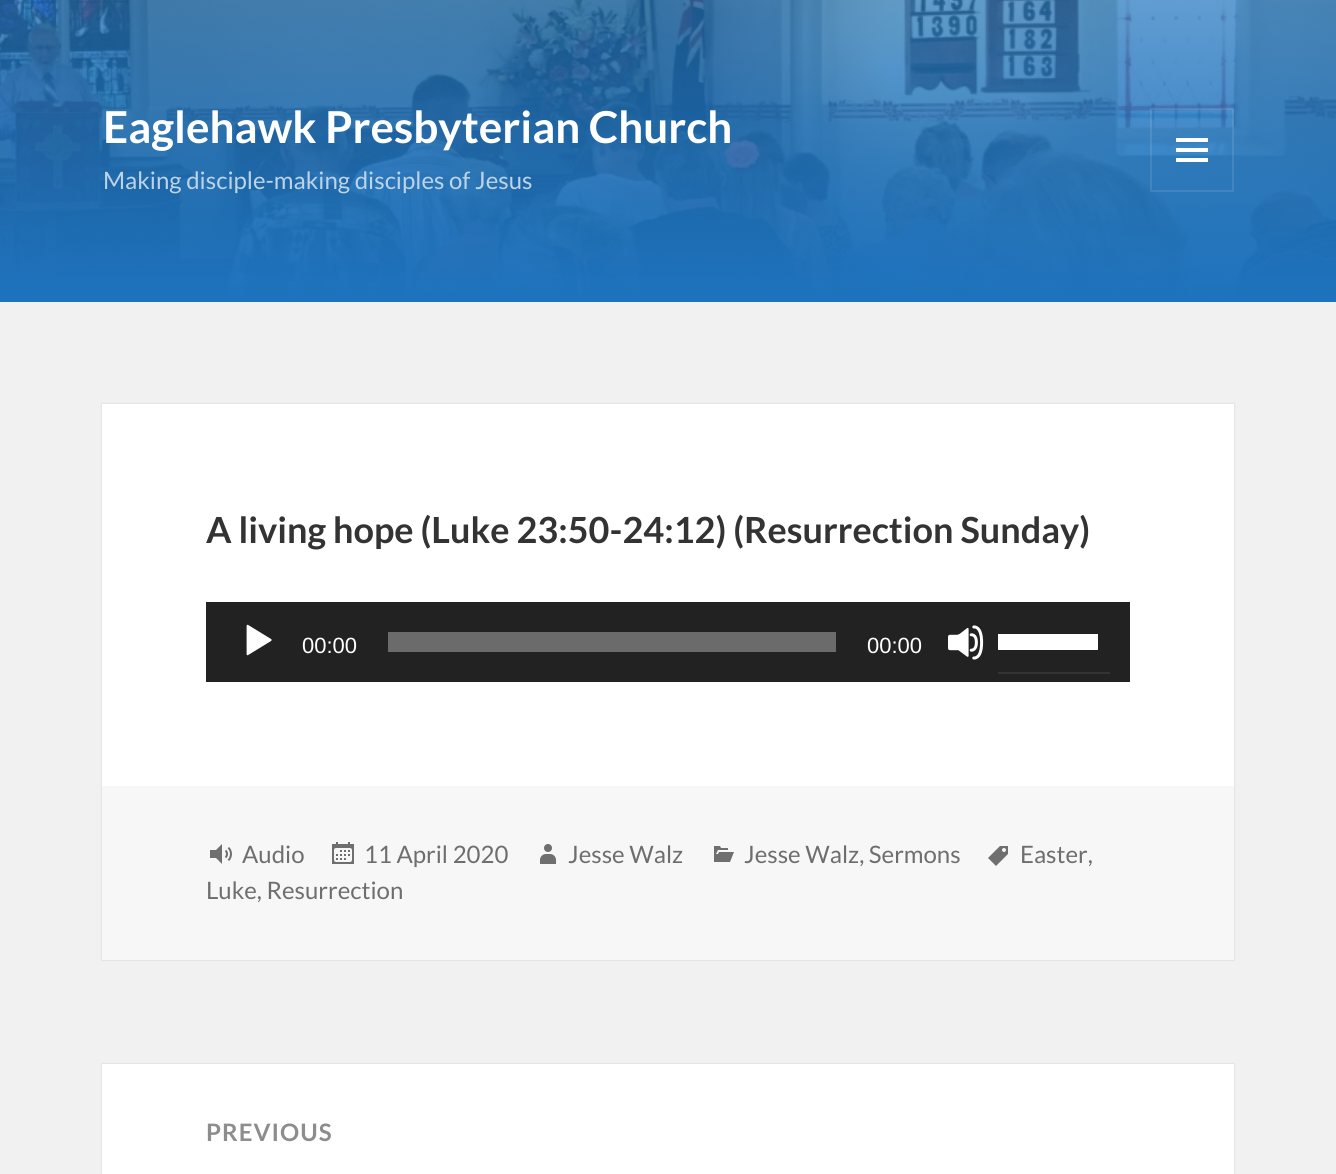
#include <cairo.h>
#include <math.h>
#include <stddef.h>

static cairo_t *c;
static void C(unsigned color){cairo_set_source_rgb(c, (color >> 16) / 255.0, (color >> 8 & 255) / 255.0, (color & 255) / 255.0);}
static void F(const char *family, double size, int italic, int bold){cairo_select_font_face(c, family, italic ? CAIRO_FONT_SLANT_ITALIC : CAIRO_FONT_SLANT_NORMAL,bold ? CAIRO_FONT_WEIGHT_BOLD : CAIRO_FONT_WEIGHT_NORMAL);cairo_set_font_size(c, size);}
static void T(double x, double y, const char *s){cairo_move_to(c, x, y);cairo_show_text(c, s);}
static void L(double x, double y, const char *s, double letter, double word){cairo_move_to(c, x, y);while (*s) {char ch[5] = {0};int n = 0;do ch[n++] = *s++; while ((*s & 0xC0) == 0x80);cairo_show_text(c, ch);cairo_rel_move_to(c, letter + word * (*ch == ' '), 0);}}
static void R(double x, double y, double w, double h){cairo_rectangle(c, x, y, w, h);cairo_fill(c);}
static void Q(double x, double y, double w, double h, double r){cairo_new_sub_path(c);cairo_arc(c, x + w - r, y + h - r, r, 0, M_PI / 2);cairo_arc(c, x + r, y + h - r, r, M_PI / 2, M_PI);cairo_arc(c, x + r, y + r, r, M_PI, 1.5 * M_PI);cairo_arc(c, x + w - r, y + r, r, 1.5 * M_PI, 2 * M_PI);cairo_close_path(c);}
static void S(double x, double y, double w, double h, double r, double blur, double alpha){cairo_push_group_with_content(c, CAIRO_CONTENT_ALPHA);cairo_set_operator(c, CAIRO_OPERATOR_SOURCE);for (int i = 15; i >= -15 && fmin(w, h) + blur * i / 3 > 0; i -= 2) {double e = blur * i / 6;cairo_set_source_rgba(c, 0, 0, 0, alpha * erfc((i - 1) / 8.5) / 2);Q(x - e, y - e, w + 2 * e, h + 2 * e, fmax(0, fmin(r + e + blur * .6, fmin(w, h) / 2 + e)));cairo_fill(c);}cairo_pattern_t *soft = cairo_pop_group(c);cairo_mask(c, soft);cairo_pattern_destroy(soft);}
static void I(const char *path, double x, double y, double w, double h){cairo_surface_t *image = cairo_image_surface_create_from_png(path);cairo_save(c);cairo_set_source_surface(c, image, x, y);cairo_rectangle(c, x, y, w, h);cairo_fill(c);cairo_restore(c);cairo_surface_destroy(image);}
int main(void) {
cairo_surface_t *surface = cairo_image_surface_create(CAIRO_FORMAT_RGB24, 1336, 1174);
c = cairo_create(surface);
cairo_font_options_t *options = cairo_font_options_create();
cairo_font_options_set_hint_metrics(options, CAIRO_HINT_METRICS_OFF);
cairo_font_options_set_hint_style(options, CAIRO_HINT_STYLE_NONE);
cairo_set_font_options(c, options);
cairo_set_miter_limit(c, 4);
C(0xf1f1f1);
cairo_paint(c);
I("1.png",0,0,1336,302);
F("Lato",44,0,1);
C(0xffffff);
T(103,143,"Eaglehawk Presbyterian Church");
cairo_rectangle(c,1151,109,82,82);
cairo_set_source_rgba(c,1,1,1,0.1);
cairo_stroke(c);
I("2.png",1176,138,32,24);
F("Lato",24,0,0);
C(0xbdd4e7);
T(103,189,"Making disciple-making disciples of Jesus");
C(0x000000);
S(102,404,1132,556,0,1,.15);
C(0xffffff);
R(102,404,1132,382);
F("Lato",36,0,1);
C(0x333333);
T(206,543,"A living hope (Luke 23:50-24:12) (Resurrection Sunday)");
C(0x222222);
R(206,602,924,80);
I("3.png",246,624,26,32);
F("Liberation Sans",22,0,0);
C(0xffffff);
T(302,653,"00:00");
C(0x6b6b6b);
R(388,632,448,20);
C(0xffffff);
T(867,653,"00:00");
I("4.png",948,625,36,35);
C(0x333333);
R(998,672,112,2);
C(0xffffff);
R(998,634,100,16);
C(0xf7f7f7);
R(102,786,1132,174);
I("5.png",988,846,20,20);
F("Lato",24,0,0);
C(0x6e6e6e);
T(1020,863,"Easter,");
T(206,899,"Luke, Resurrection");
I("6.png",210,844,22,20);
T(242,863,"Audio");
I("7.png",332,842,22,22);
T(364,863,"11 April 2020");
I("8.png",540,844,16,20);
T(568,863,"Jesse Walz");
I("9.png",714,846,20,16);
T(744,863,"Jesse Walz, Sermons");
C(0x000000);
S(102,1064,1132,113,0,1,.15);
C(0xffffff);
R(102,1064,1132,110);
F("Lato",24,0,1);
C(0x8d8d8d);
L(206,1141,"PREVIOUS",1,0);
cairo_surface_write_to_png(surface, "o.png");
cairo_font_options_destroy(options);
cairo_destroy(c);
cairo_surface_destroy(surface);
return 0;
}
